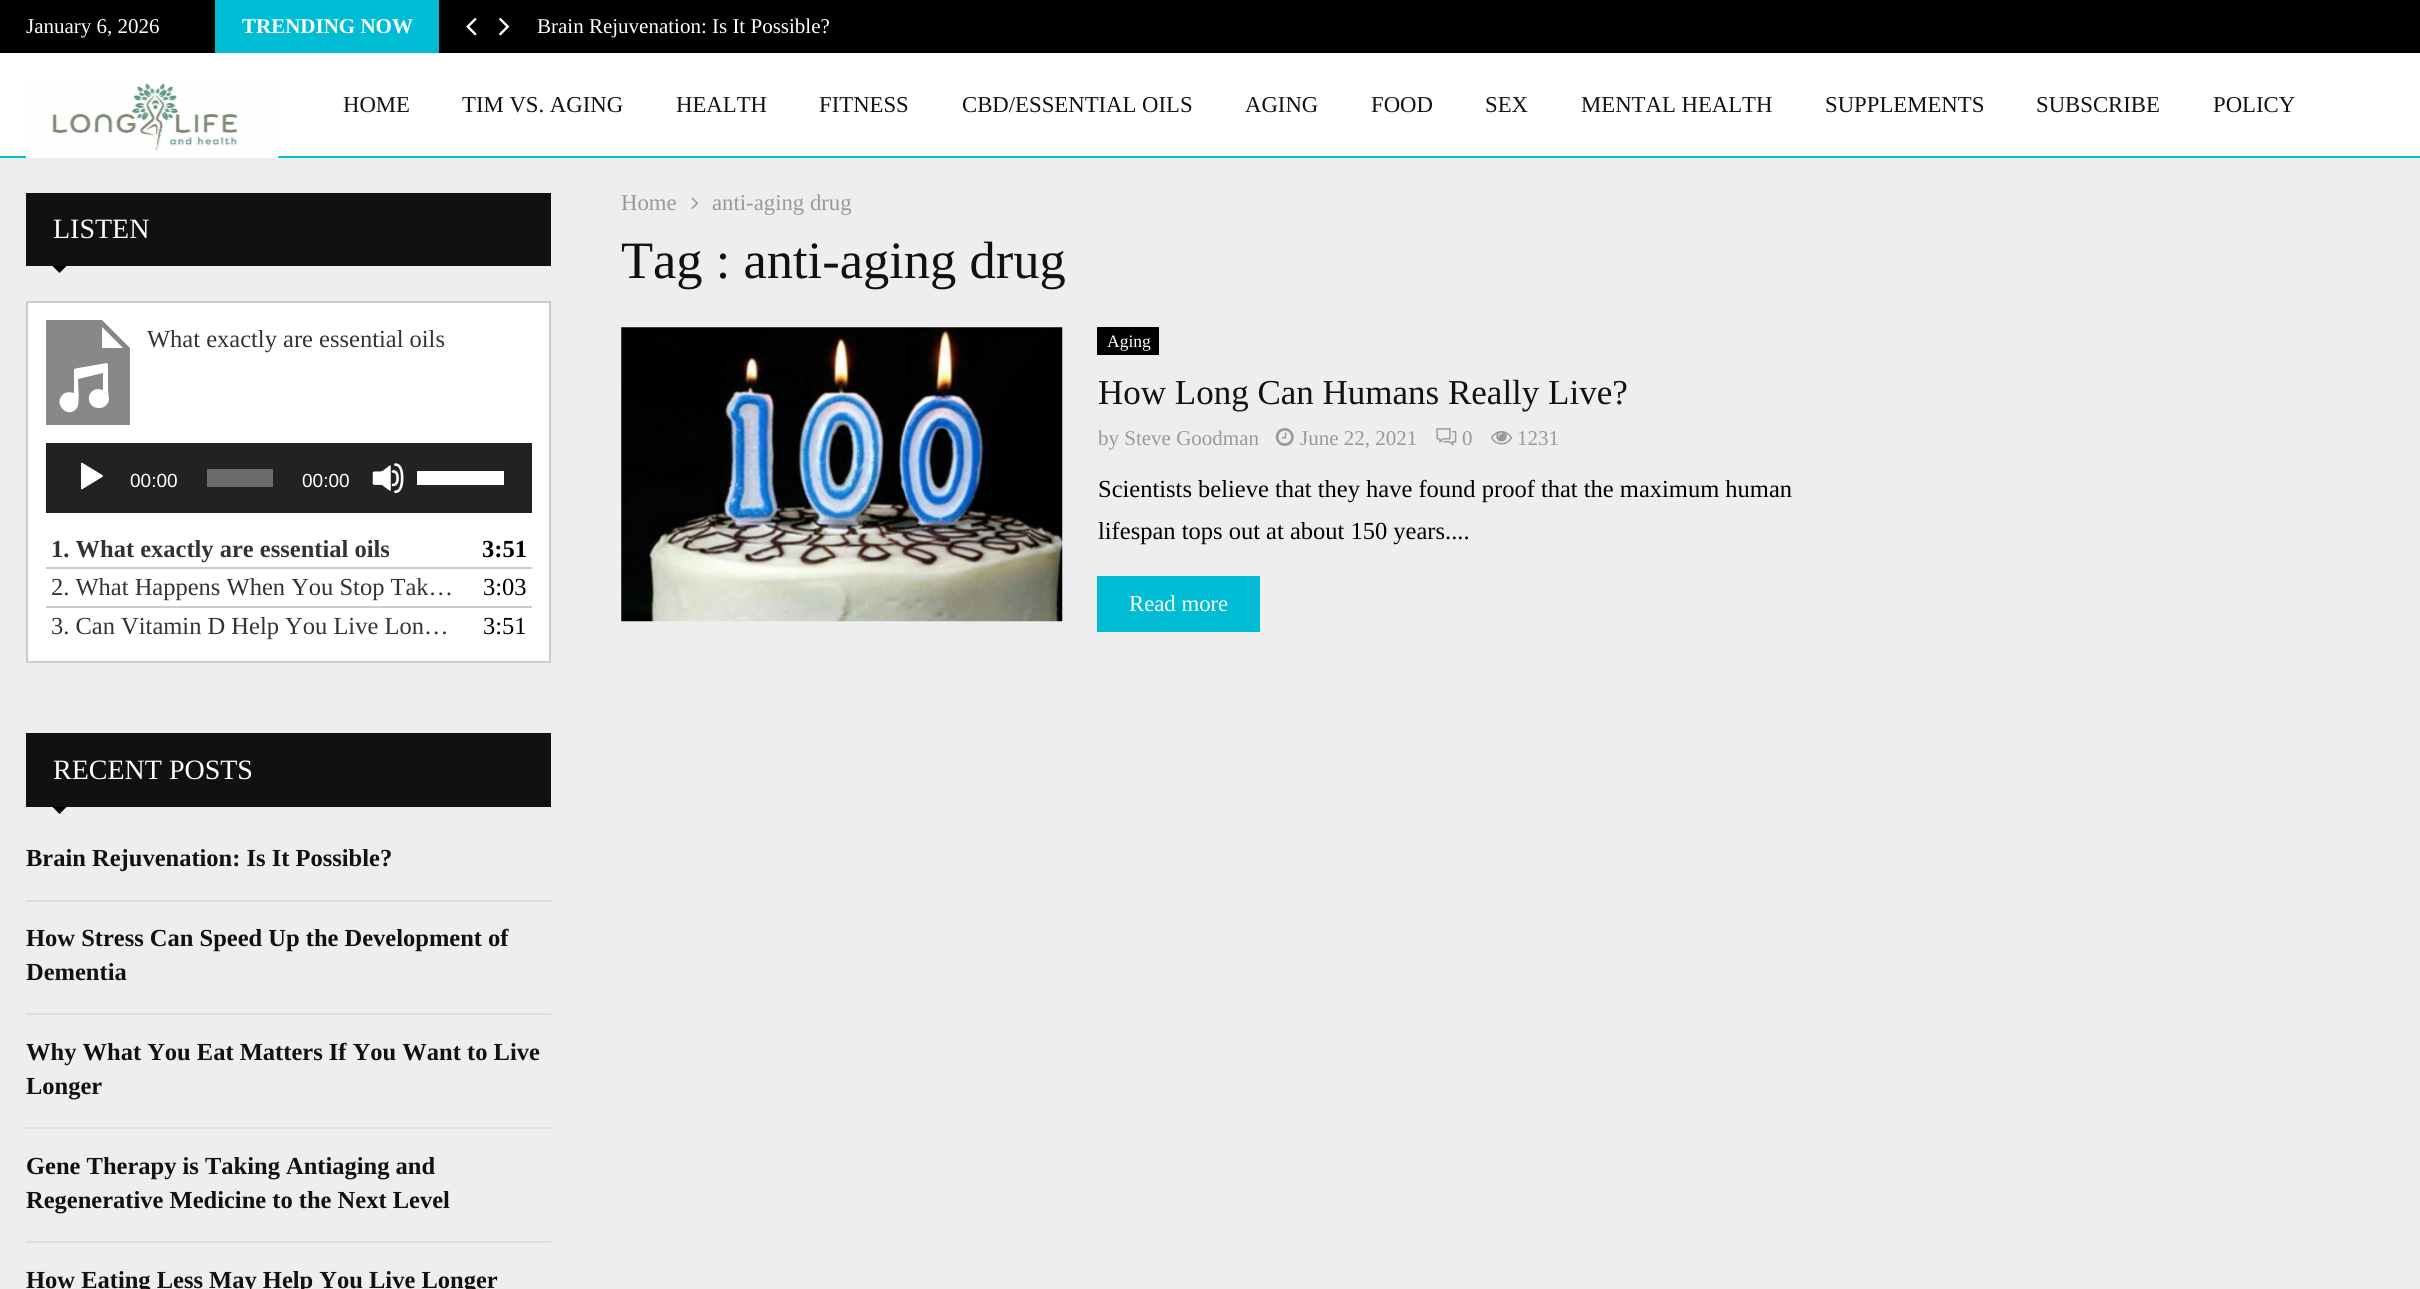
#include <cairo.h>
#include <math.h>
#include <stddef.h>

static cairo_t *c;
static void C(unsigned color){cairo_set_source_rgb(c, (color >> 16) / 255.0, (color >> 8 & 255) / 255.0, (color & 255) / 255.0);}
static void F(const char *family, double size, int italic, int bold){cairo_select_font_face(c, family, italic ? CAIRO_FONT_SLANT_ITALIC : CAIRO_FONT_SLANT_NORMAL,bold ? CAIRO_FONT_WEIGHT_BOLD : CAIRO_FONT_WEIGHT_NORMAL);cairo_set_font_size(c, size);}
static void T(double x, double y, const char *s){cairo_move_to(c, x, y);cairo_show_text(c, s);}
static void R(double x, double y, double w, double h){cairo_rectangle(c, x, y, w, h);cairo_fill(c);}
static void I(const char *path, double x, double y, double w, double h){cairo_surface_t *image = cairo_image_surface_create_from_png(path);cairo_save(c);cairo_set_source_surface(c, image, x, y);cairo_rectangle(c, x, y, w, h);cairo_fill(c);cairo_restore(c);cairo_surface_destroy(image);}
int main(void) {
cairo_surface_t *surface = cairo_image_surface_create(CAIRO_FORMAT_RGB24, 2420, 1289);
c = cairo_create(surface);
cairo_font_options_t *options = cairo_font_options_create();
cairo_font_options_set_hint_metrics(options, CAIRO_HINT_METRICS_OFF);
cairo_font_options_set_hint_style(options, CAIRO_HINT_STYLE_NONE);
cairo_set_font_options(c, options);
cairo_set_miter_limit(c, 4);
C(0xeeeeee);
cairo_paint(c);
C(0x000000);
R(0,0,2420,53);
F("Liberation Serif",21,0,0);
C(0xffffff);
T(26,33,"January 6, 2026");
C(0x00bcd4);
R(215,0,224,53);
F("Liberation Serif",21,0,1);
C(0xffffff);
T(242,33,"TRENDING NOW");
I("1.png",466,17,11,19);
I("2.png",499,17,11,19);
F("Liberation Serif",21,0,0);
T(537,33,"Brain Rejuvenation: Is It Possible?");
R(0,53,2420,103);
C(0x00bcd4);
R(0,156,2420,2);
I("3.png",26,82,253,76);
F("Liberation Serif",22.75,0,0);
C(0x111111);
T(343,112,"HOME");
T(462,112,"TIM VS. AGING");
T(676,112,"HEALTH");
T(819,112,"FITNESS");
T(962,112,"CBD/ESSENTIAL OILS");
T(1245,112,"AGING");
T(1371,112,"FOOD");
T(1485,112,"SEX");
T(1581,112,"MENTAL HEALTH");
T(1825,112,"SUPPLEMENTS");
T(2036,112,"SUBSCRIBE");
T(2213,112,"POLICY");
R(26,193,525,73);
F("Liberation Serif",28,0,0);
C(0xffffff);
T(53,238,"LISTEN");
C(0x000000);
cairo_new_path(c);
cairo_move_to(c,52.5,266);
cairo_line_to(c,66.5,266);
cairo_line_to(c,59.5,273);
cairo_close_path(c);
cairo_fill(c);
C(0xffffff);
cairo_rectangle(c,27,302,523,360);
cairo_fill_preserve(c);
C(0xcccccc);
cairo_stroke(c);
cairo_save(c);
cairo_rectangle(c,46,320,84,105);
cairo_clip(c);
C(0x888888);
cairo_new_path(c);
cairo_move_to(c,102,320);
cairo_line_to(c,46,320);
cairo_line_to(c,46,432);
cairo_line_to(c,130,432);
cairo_line_to(c,130,348);
cairo_close_path(c);
cairo_move_to(c,108,371);
cairo_line_to(c,108,389);
cairo_curve_to(c,108,394,110,399,108,403);
cairo_curve_to(c,106,406,103,408,100,408);
cairo_curve_to(c,86,409,85,390,98,389);
cairo_line_to(c,103,390);
cairo_line_to(c,103,373);
cairo_line_to(c,78,379);
cairo_curve_to(c,78,385,80,404,77,408);
cairo_curve_to(c,67,421,51,401,65,393);
cairo_curve_to(c,67,392,71,392,74,393);
cairo_line_to(c,74,370);
cairo_line_to(c,74,369);
cairo_curve_to(c,76,368,103,364,106,363);
cairo_line_to(c,108,364);
cairo_close_path(c);
cairo_move_to(c,102,348);
cairo_line_to(c,102,327);
cairo_line_to(c,123,348);
cairo_close_path(c);
cairo_fill(c);
cairo_restore(c);
F("Liberation Serif",24.5,0,0);
C(0x333333);
T(147,347,"What exactly are essential oils");
C(0x222222);
R(46,443,486,70);
I("4.png",81,462,22,28);
F("Liberation Sans",19,0,0);
C(0xffffff);
T(130,487,"00:00");
C(0x6b6b6b);
R(207,469,66,18);
C(0xffffff);
T(302,487,"00:00");
I("5.png",372,463,32,30);
R(417,471,87,14);
C(0xcccccc);
R(46,567,486,2);
F("Liberation Serif",24.5,0,1);
C(0x333333);
T(51,557,"1. What exactly are essential oils");
C(0x000000);
T(482,557,"3:51");
C(0xcccccc);
R(46,606,486,2);
F("Liberation Serif",24.5,0,0);
C(0x333333);
T(51,595,"2. What Happens When You Stop Tak…");
C(0x000000);
T(483,595,"3:03");
C(0x333333);
T(51,634,"3. Can Vitamin D Help You Live Lon…");
C(0x000000);
T(483,634,"3:51");
C(0x111111);
R(26,733,525,74);
F("Liberation Serif",28,0,0);
C(0xffffff);
T(53,779,"RECENT POSTS");
C(0x000000);
cairo_new_path(c);
cairo_move_to(c,52.5,807);
cairo_line_to(c,66.5,807);
cairo_line_to(c,59.5,814);
cairo_close_path(c);
cairo_fill(c);
C(0xdedede);
R(26,900,525,2);
F("Liberation Serif",24.5,0,1);
C(0x111111);
T(26,866,"Brain Rejuvenation: Is It Possible?");
C(0xdedede);
R(26,1013,525,2);
C(0x111111);
T(26,946,"How Stress Can Speed Up the Development of");
T(26,980,"Dementia");
C(0xdedede);
R(26,1127,525,2);
C(0x111111);
T(26,1060,"Why What You Eat Matters If You Want to Live");
T(26,1094,"Longer");
C(0xdedede);
R(26,1241,525,2);
C(0x111111);
T(26,1174,"Gene Therapy is Taking Antiaging and");
T(26,1208,"Regenerative Medicine to the Next Level");
T(26,1288,"How Eating Less May Help You Live Longer");
F("Liberation Serif",22.75,0,0);
C(0x999999);
T(621,210,"Home");
I("6.png",691,197,8,12);
T(712,210,"anti-aging drug");
F("Liberation Serif",52.5,0,0);
C(0x111111);
T(621,278,"Tag : anti-aging drug");
C(0xf5f5f5);
R(621,327,441,294);
I("7.png",621,327,442,295);
C(0x000000);
R(1097,327,62,28);
F("Liberation Serif",17.5,0,0);
C(0xffffff);
T(1107,347,"Aging");
F("Liberation Serif",35,0,0);
C(0x111111);
T(1098,404,"How Long Can Humans Really Live?");
F("Liberation Serif",21,0,0);
C(0x999999);
T(1098,445,"by Steve Goodman");
I("8.png",1275,428,19,18);
T(1300,445,"June 22, 2021");
I("9.png",1436,428,21,18);
T(1462,445,"0");
I("10.png",1491,431,21,14);
T(1517,445,"1231");
F("Liberation Serif",24.5,0,0);
C(0x000000);
T(1098,497,"Scientists believe that they have found proof that the maximum human");
T(1098,539,"lifespan tops out at about 150 years....");
C(0x00bcd4);
R(1097,576,163,56);
F("Liberation Serif",22.75,0,0);
C(0xffffff);
T(1129,611,"Read more");
cairo_surface_write_to_png(surface, "o.png");
cairo_font_options_destroy(options);
cairo_destroy(c);
cairo_surface_destroy(surface);
return 0;
}
